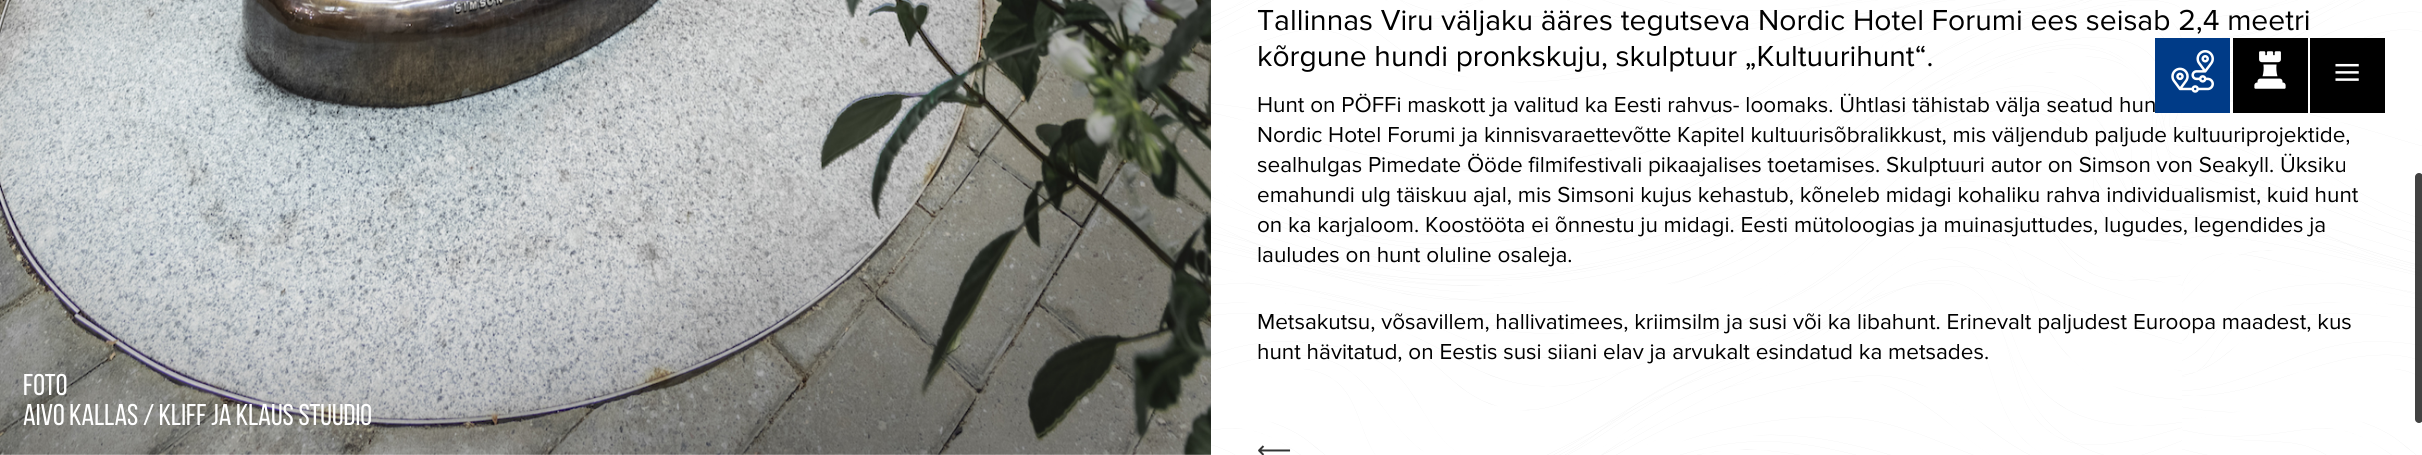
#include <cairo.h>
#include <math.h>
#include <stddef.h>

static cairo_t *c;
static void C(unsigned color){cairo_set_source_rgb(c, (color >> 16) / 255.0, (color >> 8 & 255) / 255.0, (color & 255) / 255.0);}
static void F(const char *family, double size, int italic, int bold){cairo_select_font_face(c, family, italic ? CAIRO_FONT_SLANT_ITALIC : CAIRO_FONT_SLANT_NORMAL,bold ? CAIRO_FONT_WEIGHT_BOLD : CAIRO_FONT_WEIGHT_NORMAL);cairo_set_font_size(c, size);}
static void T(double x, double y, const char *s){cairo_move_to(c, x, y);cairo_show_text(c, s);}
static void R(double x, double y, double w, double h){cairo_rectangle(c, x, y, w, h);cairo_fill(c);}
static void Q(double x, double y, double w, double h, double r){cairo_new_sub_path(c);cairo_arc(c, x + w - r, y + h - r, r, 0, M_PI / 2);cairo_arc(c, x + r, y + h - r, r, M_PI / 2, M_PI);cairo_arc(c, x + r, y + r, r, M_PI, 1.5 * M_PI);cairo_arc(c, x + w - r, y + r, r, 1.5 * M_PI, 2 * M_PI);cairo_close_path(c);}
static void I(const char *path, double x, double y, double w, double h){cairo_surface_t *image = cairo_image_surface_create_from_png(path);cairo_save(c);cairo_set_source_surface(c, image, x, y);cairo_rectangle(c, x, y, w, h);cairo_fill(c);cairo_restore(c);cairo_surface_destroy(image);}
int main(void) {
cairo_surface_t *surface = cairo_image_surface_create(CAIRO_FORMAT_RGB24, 2422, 455);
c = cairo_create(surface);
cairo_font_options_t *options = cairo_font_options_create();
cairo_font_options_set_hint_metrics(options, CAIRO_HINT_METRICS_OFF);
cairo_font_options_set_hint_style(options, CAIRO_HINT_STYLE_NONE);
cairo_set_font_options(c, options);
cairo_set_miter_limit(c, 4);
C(0xffffff);
cairo_paint(c);
I("1.png",20,0,2402,455);
I("2.png",0,0,1211,455);
F("Proxima Nova",30,0,0);
C(0x000000);
T(1257,30,"Tallinnas Viru väljaku ääres tegutseva Nordic Hotel Forumi ees seisab 2,4 meetri");
T(1257,66,"kõrgune hundi pronkskuju, skulptuur „Kultuurihunt“.");
F("Proxima Nova",22.5,0,0);
T(1257,112,"Hunt on PÖFFi maskott ja valitud ka Eesti rahvus- loomaks. Ühtlasi tähistab välja seatud hun");
T(1257,142,"Nordic Hotel Forumi ja kinnisvaraettevõtte Kapitel kultuurisõbralikkust, mis väljendub paljude kultuuriprojektide,");
T(1257,172,"sealhulgas Pimedate Ööde filmifestivali pikaajalises toetamises. Skulptuuri autor on Simson von Seakyll. Üksiku");
T(1257,202,"emahundi ulg täiskuu ajal, mis Simsoni kujus kehastub, kõneleb midagi kohaliku rahva individualismist, kuid hunt");
T(1257,232,"on ka karjaloom. Koostööta ei õnnestu ju midagi. Eesti mütoloogias ja muinasjuttudes, lugudes, legendides ja");
T(1257,262,"lauludes on hunt oluline osaleja.");
T(1257,329,"Metsakutsu, võsavillem, hallivatimees, kriimsilm ja susi või ka libahunt. Erinevalt paljudest Euroopa maadest, kus");
T(1257,359,"hunt hävitatud, on Eestis susi siiani elav ja arvukalt esindatud ka metsades.");
F("DejaVu Sans",24,0,0);
C(0x333333);
T(1257,458,"⟵");
F("Bebas Neue",30,0,0);
C(0xffffff);
T(23,395,"Foto");
T(23,425,"Aivo Kallas / Kliff ja Klaus Stuudio");
C(0x003b87);
R(2155,38,75,75);
I("3.png",2171,50,43,43);
C(0x000000);
R(2233,38,75,75);
I("4.png",2254,51,32,38);
R(2310,38,75,75);
F("Liberation Serif",50,0,0);
C(0xffffff);
T(2333,89,"≡");
cairo_set_source_rgba(c,0,0,0,0.74);
Q(2415,173,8,250,4);
cairo_fill(c);
cairo_surface_write_to_png(surface, "o.png");
cairo_font_options_destroy(options);
cairo_destroy(c);
cairo_surface_destroy(surface);
return 0;
}
